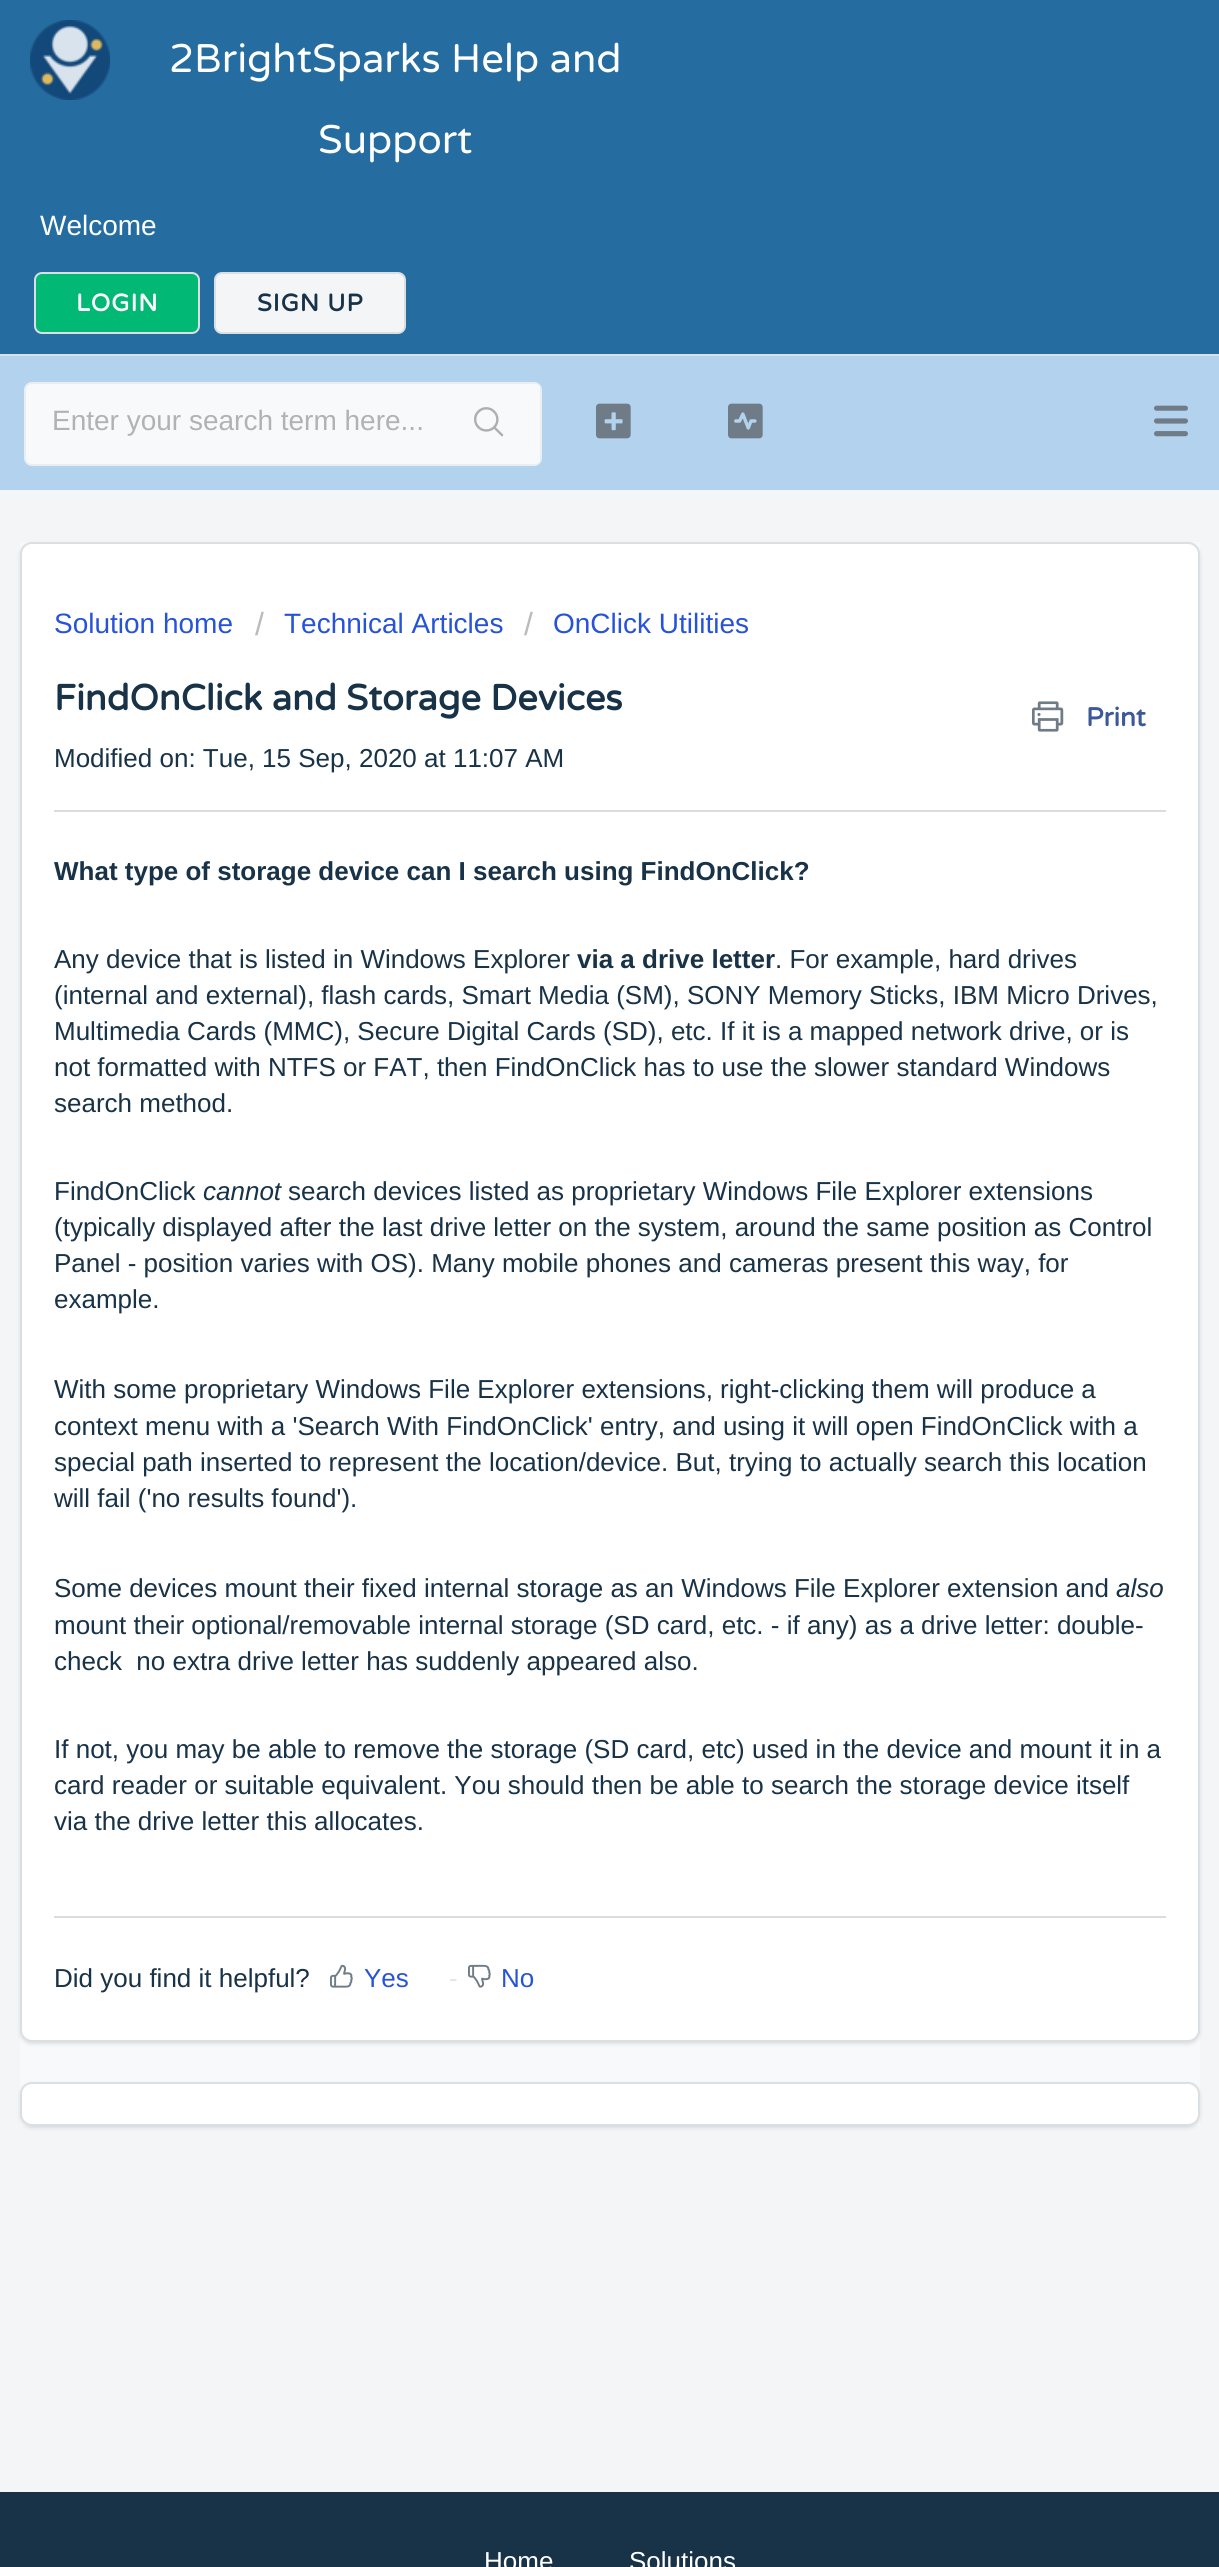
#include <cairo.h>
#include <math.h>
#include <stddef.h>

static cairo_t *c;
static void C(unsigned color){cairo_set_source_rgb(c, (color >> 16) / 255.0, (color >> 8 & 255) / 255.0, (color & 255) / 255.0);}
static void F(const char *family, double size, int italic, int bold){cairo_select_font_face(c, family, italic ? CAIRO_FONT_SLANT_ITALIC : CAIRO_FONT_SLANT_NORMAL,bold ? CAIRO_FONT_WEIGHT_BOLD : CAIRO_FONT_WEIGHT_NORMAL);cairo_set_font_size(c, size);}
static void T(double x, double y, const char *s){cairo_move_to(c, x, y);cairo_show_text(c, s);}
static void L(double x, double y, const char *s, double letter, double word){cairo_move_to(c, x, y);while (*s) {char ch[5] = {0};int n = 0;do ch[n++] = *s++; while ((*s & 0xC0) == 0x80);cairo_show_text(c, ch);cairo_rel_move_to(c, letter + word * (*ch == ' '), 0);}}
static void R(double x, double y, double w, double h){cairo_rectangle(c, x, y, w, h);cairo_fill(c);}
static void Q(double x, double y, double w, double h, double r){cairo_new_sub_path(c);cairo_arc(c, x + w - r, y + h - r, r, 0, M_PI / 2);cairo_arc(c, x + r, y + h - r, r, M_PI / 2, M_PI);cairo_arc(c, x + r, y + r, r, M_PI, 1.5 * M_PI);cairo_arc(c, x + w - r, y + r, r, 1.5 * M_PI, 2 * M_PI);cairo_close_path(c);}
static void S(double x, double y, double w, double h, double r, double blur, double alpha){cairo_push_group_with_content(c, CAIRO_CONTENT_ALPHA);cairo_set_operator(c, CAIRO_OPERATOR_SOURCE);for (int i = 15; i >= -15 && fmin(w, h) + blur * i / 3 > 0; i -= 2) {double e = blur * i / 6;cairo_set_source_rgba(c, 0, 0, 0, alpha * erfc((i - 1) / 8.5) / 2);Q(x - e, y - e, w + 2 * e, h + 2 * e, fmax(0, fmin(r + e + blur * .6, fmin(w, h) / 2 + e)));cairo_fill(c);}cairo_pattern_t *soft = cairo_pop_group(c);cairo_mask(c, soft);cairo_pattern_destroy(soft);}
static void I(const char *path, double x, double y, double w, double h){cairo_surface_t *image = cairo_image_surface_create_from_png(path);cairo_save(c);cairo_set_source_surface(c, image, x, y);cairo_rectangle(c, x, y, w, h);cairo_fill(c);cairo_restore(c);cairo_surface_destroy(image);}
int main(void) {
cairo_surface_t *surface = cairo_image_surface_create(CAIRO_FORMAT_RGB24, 1219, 2567);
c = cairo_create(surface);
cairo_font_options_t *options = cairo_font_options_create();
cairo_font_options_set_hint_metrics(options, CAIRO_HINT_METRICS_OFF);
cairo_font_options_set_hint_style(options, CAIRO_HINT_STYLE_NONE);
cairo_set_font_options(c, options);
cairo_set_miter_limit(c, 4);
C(0xf3f5f7);
cairo_paint(c);
C(0x256da1);
R(0,0,1219,354);
C(0xdadfe3);
R(0,354,1219,2);
I("1.png",30,20,80,80);
F("Varela Round",40,0,0);
C(0xffffff);
T(169,72,"2BrightSparks Help and");
T(318,153,"Support");
F("Liberation Sans",28,0,0);
T(40,235,"Welcome");
C(0x02b875);
Q(35,273,164,60,7);
cairo_fill_preserve(c);
C(0xdadfe3);
cairo_stroke(c);
F("Varela Round",24,0,1);
C(0xffffff);
L(76,311,"LOGIN",1,0);
C(0xf3f5f7);
Q(215,273,190,60,7);
cairo_fill_preserve(c);
C(0xdadfe3);
cairo_stroke(c);
C(0x183247);
L(257,311,"SIGN UP",1,0);
C(0xb3d2ee);
R(0,356,1219,134);
I("2.png",1154,405,34,32);
C(0xf8f9fa);
Q(25,383,516,82,7);
cairo_fill_preserve(c);
C(0xebeef0);
cairo_stroke(c);
F("Liberation Sans",28,0,0);
C(0xb2b2b2);
T(52,430,"Enter your search term here...");
C(0xf8f9fa);
Q(438,384,102,80,4);
cairo_fill(c);
I("3.png",474,407,30,30);
I("4.png",596,403,35,36);
I("5.png",728,403,35,36);
R(20,542,1180,1584);
C(0x3f3f44);
S(20,544,1180,1500,12,2,.15);
C(0xffffff);
Q(21,543,1178,1498,11);
cairo_fill_preserve(c);
C(0xdadfe3);
cairo_stroke(c);
C(0x2753d7);
T(54,633,"Solution home");
F("Liberation Sans",32,0,0);
C(0xbbbbbb);
T(255,635,"/");
F("Liberation Sans",28,0,0);
C(0x2753d7);
T(284,633,"Technical Articles");
F("Liberation Sans",32,0,0);
C(0xbbbbbb);
T(524,635,"/");
F("Liberation Sans",28,0,0);
C(0x2753d7);
T(553,633,"OnClick Utilities");
F("Varela Round",36,0,1);
C(0x183247);
T(54,710,"FindOnClick and Storage Devices");
I("6.png",1032,701,32,31);
F("Varela Round",26,0,1);
C(0x3b5998);
T(1086,726,"Print");
F("Liberation Sans",26,0,0);
C(0x183247);
T(54,767,"Modified on: Tue, 15 Sep, 2020 at 11:07 AM");
C(0xdcdcdc);
R(54,810,1112,2);
F("Liberation Sans",26,0,1);
C(0x183247);
T(54,880,"What type of storage device can I search using FindOnClick?");
F("Liberation Sans",26,0,0);
T(54,968,"Any device that is listed in Windows Explorer");
F("Liberation Sans",26,0,1);
T(577,968,"via a drive letter");
F("Liberation Sans",26,0,0);
T(775,968,". For example, hard drives");
T(54,1004,"(internal and external), flash cards, Smart Media (SM), SONY Memory Sticks, IBM Micro Drives,");
T(54,1040,"Multimedia Cards (MMC), Secure Digital Cards (SD), etc. If it is a mapped network drive, or is");
T(54,1076,"not formatted with NTFS or FAT, then FindOnClick has to use the slower standard Windows");
T(54,1112,"search method.");
T(54,1200,"FindOnClick");
F("Liberation Sans",26,1,0);
T(203,1200,"cannot");
F("Liberation Sans",26,0,0);
T(288,1200,"search devices listed as proprietary Windows File Explorer extensions");
T(54,1236,"(typically displayed after the last drive letter on the system, around the same position as Control");
T(54,1272,"Panel - position varies with OS). Many mobile phones and cameras present this way, for");
T(54,1308,"example.");
T(54,1398,"With some proprietary Windows File Explorer extensions, right-clicking them will produce a");
T(54,1435,"context menu with a 'Search With FindOnClick' entry, and using it will open FindOnClick with a");
T(54,1471,"special path inserted to represent the location/device. But, trying to actually search this location");
T(54,1507,"will fail ('no results found').");
T(54,1597,"Some devices mount their fixed internal storage as an Windows File Explorer extension and");
F("Liberation Sans",26,1,0);
T(1116,1597,"also");
F("Liberation Sans",26,0,0);
T(54,1634,"mount their optional/removable internal storage (SD card, etc. - if any) as a drive letter: double-");
T(54,1670,"check  no extra drive letter has suddenly appeared also.");
T(54,1758,"If not, you may be able to remove the storage (SD card, etc) used in the device and mount it in a");
T(54,1794,"card reader or suitable equivalent. You should then be able to search the storage device itself");
T(54,1830,"via the drive letter this allocates.");
C(0xdcdcdc);
R(54,1916,1112,2);
C(0x183247);
T(54,1987,"Did you find it helpful?");
I("7.png",330,1964,23,24);
C(0x2753d7);
T(364,1987,"Yes");
C(0xe5e5e5);
T(449,1987,"-");
I("8.png",468,1964,23,24);
C(0x2753d7);
T(501,1987,"No");
C(0x3f3f44);
S(20,2084,1180,44,12,2,.15);
C(0xffffff);
Q(21,2083,1178,42,11);
cairo_fill_preserve(c);
C(0xdadfe3);
cairo_stroke(c);
C(0x183247);
R(0,2492,1219,75);
C(0xffffff);
T(484,2570,"Home");
T(629,2570,"Solutions");
cairo_surface_write_to_png(surface, "o.png");
cairo_font_options_destroy(options);
cairo_destroy(c);
cairo_surface_destroy(surface);
return 0;
}
